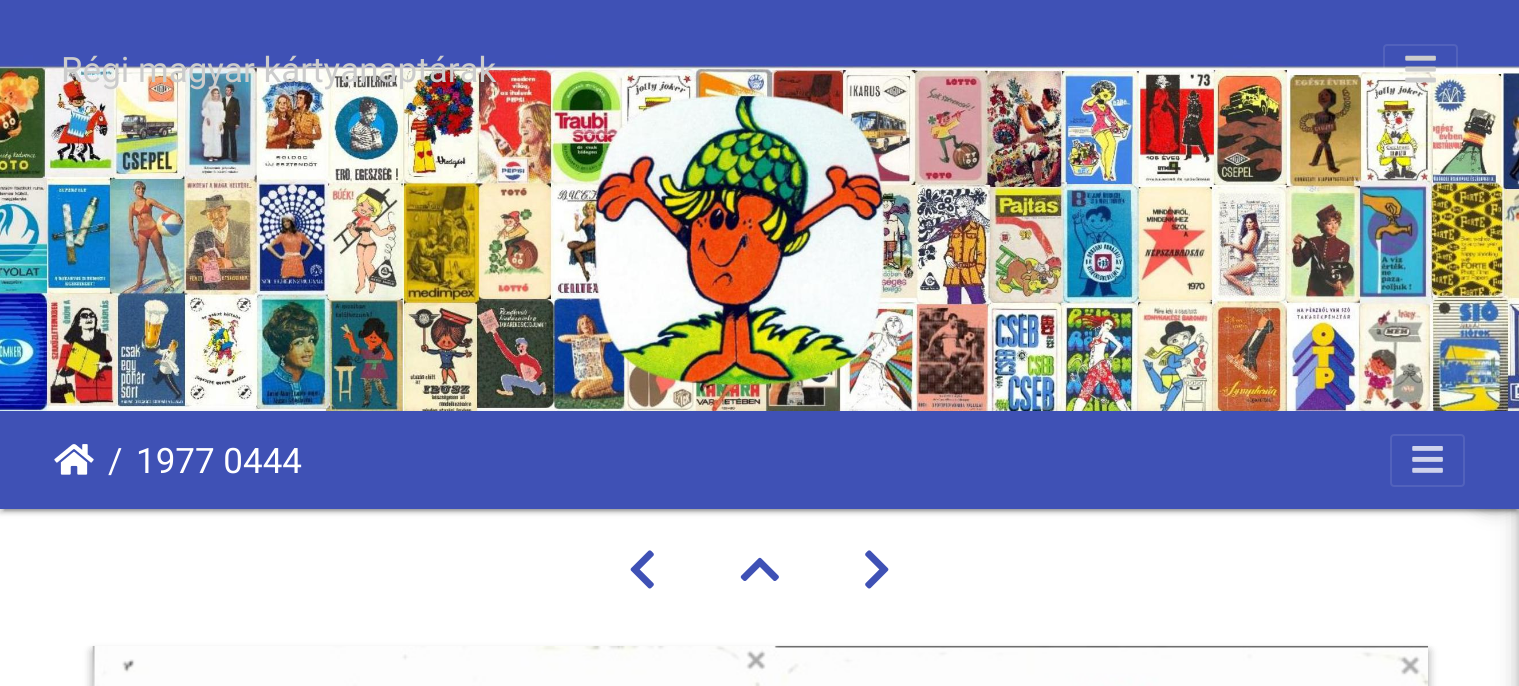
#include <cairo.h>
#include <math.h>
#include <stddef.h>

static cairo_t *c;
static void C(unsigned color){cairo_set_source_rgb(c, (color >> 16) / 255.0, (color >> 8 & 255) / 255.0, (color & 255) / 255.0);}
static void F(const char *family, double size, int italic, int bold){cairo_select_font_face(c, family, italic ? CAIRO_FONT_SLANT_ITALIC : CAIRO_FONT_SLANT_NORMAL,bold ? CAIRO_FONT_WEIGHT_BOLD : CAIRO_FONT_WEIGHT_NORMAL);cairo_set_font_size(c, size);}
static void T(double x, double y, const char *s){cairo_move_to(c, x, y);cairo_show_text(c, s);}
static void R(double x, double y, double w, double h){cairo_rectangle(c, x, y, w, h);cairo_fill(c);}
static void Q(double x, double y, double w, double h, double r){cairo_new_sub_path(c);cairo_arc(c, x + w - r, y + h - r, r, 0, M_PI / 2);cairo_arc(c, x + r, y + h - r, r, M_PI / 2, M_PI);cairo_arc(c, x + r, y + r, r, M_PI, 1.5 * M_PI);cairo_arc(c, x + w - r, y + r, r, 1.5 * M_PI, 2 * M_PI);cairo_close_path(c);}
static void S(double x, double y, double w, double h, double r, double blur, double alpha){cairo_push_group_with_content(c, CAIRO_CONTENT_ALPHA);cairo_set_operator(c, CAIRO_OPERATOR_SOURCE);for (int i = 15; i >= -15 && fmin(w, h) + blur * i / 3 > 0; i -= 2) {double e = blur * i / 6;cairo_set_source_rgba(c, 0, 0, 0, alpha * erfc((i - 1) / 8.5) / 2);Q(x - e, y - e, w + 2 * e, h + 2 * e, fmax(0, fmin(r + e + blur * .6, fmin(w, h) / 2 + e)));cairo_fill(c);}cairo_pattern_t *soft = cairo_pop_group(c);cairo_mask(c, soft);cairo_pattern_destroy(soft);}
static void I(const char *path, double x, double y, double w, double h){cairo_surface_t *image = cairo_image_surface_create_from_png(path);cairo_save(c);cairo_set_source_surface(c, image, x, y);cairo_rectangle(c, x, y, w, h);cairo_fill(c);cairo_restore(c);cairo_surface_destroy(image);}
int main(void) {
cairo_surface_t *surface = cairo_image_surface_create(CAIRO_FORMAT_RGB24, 1519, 686);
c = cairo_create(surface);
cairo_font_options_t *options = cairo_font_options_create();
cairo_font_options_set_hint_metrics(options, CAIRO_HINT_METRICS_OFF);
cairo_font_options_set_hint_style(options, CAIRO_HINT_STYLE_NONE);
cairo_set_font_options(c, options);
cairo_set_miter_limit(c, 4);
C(0xffffff);
cairo_paint(c);
I("1.png",0,0,1519,411);
F("Roboto",35,0,0);
C(0xcccccc);
T(61,82,"Régi magyar kártyanaptárak");
Q(1384,45,73,50,3);
cairo_set_source_rgba(c,1,1,1,0.1);
cairo_stroke(c);
I("2.png",1405,55,31,28);
I("3.png",630,550,24,39);
I("4.png",740,557,39,24);
I("5.png",865,550,24,39);
C(0x000000);
S(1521,410,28,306,16,4.5,.2);
S(1519,404,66,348,18,16,.12);
S(1519,413,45,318,18,9,.14);
S(1474,427,43,77,16,4.5,.2);
S(1472,422,47,80,18,16,.12);
S(1472,431,47,80,18,9,.14);
cairo_save(c);
cairo_rectangle(c,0,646,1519,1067);
cairo_clip(c);
S(93,651,1335,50,0,5,.23);
cairo_restore(c);
S(93,651,1335,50,0,5,.16);
I("6.png",92,645,1336,41);
S(0,413,1519,98,0,4.5,.12);
S(4,420,1512,91,0,1,.2);
S(0,415,1519,98,0,2,.14);
C(0x3f51b5);
R(0,411,1519,98);
I("7.png",54,444,40,31);
C(0xffffff);
T(108,473,"/");
T(136,473,"1977 0444");
Q(1391,435,73,51,3);
C(0x5262bc);
cairo_stroke(c);
I("8.png",1412,446,31,27);
cairo_surface_write_to_png(surface, "o.png");
cairo_font_options_destroy(options);
cairo_destroy(c);
cairo_surface_destroy(surface);
return 0;
}
